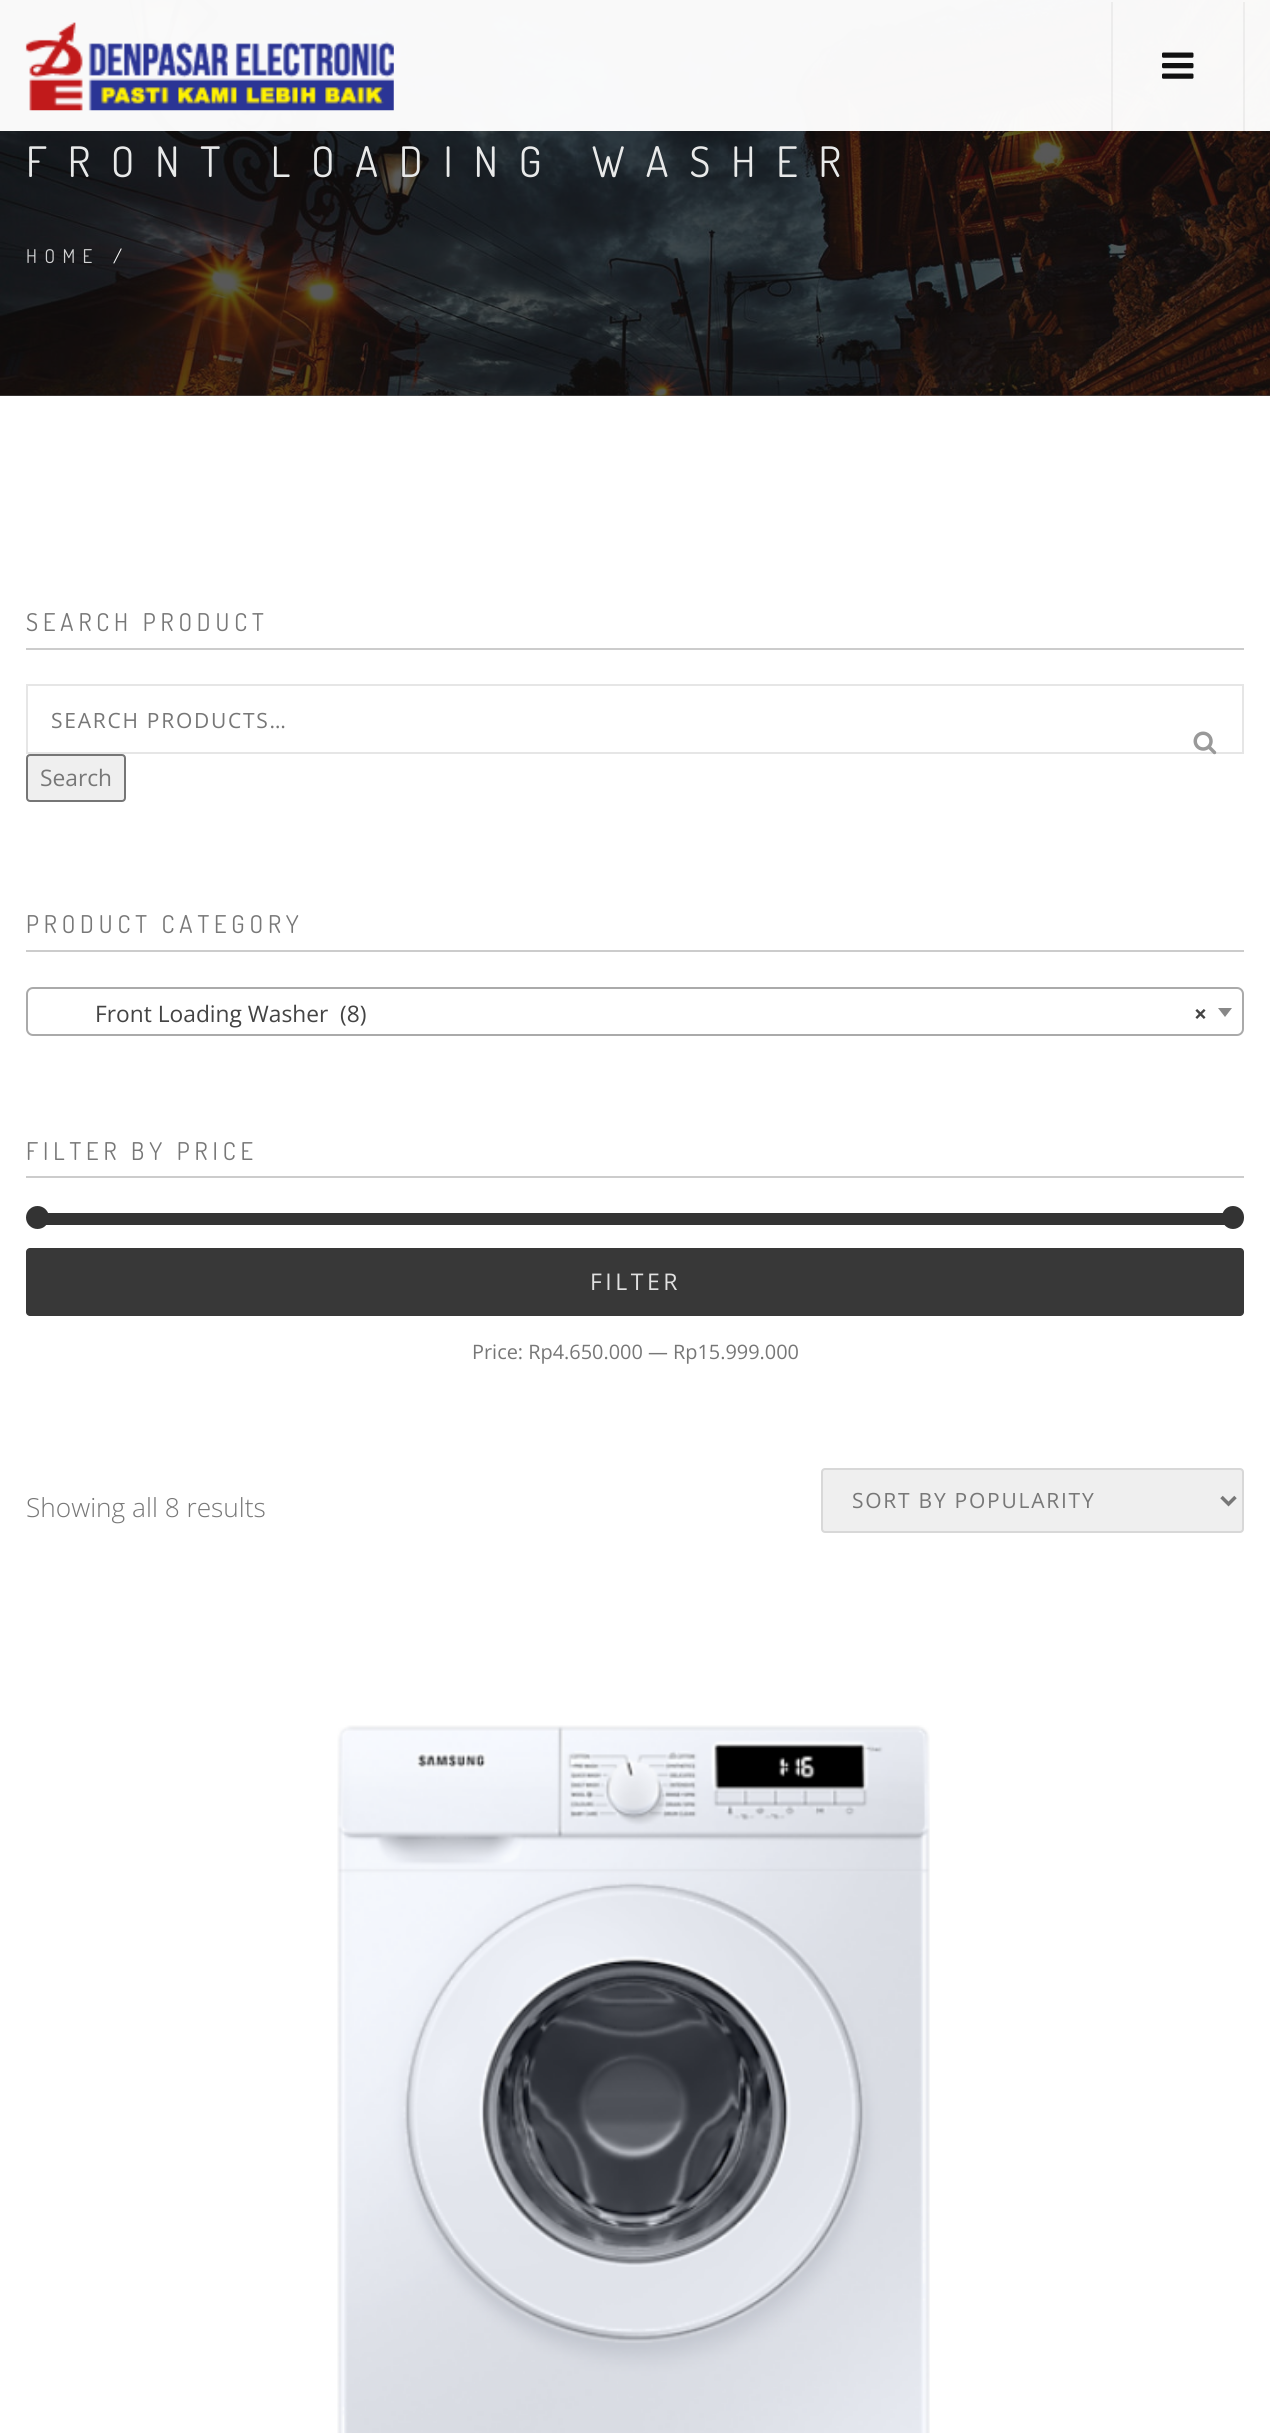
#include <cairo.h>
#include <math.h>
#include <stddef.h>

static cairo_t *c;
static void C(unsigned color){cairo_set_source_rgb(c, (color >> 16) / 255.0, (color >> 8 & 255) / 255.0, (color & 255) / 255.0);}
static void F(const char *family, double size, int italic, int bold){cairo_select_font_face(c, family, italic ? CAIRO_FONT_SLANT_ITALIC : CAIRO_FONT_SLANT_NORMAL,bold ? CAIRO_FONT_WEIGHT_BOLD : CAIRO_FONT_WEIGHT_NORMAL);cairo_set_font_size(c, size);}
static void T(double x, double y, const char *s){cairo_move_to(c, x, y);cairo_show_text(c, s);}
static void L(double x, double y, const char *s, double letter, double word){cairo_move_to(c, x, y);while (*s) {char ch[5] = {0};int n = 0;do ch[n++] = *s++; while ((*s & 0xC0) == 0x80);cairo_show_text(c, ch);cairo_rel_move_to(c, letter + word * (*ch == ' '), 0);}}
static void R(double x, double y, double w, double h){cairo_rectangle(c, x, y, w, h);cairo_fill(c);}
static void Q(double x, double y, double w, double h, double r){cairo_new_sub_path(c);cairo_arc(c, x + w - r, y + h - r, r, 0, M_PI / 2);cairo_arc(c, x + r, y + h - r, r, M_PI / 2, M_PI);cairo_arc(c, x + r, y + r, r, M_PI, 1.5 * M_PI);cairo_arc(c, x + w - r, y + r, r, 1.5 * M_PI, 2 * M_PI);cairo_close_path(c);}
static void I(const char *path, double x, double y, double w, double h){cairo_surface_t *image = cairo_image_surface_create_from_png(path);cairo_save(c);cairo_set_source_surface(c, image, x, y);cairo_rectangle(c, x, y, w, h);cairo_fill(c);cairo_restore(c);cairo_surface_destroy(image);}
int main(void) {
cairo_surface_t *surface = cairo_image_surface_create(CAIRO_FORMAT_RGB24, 1270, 2433);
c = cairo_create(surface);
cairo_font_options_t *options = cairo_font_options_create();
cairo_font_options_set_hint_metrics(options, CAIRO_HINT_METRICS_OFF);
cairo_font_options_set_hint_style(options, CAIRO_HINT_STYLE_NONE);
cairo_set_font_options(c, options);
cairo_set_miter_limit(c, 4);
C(0xffffff);
cairo_paint(c);
C(0x585858);
R(0,395,1270,1);
I("3.png",0,0,1270,396);
cairo_set_source_rgba(c,1,1,1,0.97);
R(0,0,1270,131);
I("1.png",25,22,369,89);
cairo_set_source_rgba(c,0,0,0,0.05);
R(1243,2,2,131);
R(1111,2,2,131);
I("2.png",1162,52,32,27);
F("Dosis",42,0,0);
C(0xe8e9e9);
L(26,177,"FRONT LOADING WASHER",21,0);
F("Dosis",19,0,0);
C(0xd1d1d2);
L(26,263,"HOME",7.5,0);
C(0xffffff);
L(113,263,"/",7.5,0);
C(0xcccccc);
R(26,648,1218,2);
F("Dosis",24.5,0,0);
C(0x777777);
L(26,631,"SEARCH PRODUCT",4.9,0);
cairo_rectangle(c,27,685,1216,68);
C(0xe6e6e6);
cairo_stroke(c);
F("Open Sans",21,0,0);
C(0x777777);
L(51,728,"SEARCH PRODUCTS…",1.75,0);
I("4.png",1193,731,24,24);
C(0xefefef);
Q(27,755,98,46,3);
cairo_fill_preserve(c);
C(0x767676);
cairo_stroke(c);
F("Open Sans",22.75,0,0);
C(0x777777);
T(40,786,"Search");
C(0xcccccc);
R(26,950,1218,2);
F("Dosis",24.5,0,0);
C(0x777777);
L(26,933,"PRODUCT CATEGORY",4.9,0);
Q(27,988,1216,47,6);
C(0xaaaaaa);
cairo_stroke(c);
F("Open Sans",22.75,0,0);
C(0x444444);
T(95,1022,"Front Loading Washer  (8)");
F("Open Sans",22.75,0,1);
T(1194,1022,"×");
C(0x888888);
cairo_new_path(c);
cairo_move_to(c,1218,1008);
cairo_line_to(c,1232,1008);
cairo_line_to(c,1225,1017);
cairo_close_path(c);
cairo_fill(c);
C(0xcccccc);
R(26,1176,1218,2);
F("Dosis",24.5,0,0);
C(0x777777);
L(26,1160,"FILTER BY PRICE",4.9,0);
C(0x333333);
R(46,1213,1179,12);
cairo_new_path(c);
cairo_arc(c,37.5,1217.5,11.5,0,2 * M_PI);
cairo_fill(c);
Q(1222,1206,22,23,11);
cairo_fill(c);
C(0x383838);
Q(26,1248,1218,68,4);
cairo_fill(c);
F("Open Sans",23,0,0);
C(0xe1e1e1);
L(590,1290,"FILTER",3.5,0);
F("Open Sans",19.9,0,0);
C(0x777777);
T(472,1359,"Price: Rp4.650.000 — Rp15.999.000");
F("Open Sans Light",26.25,0,0);
T(26,1517,"Showing all 8 results");
C(0xefefef);
Q(821,1468,423,65,4);
cairo_fill(c);
Q(822,1469,421,63,3);
cairo_set_source_rgba(c,0,0,0,0.1);
cairo_stroke(c);
cairo_new_path(c);
cairo_move_to(c,1221.5,1497);
cairo_line_to(c,1228.5,1504);
cairo_line_to(c,1235.5,1497);
C(0x777777);
cairo_set_line_width(c,3.5);
cairo_stroke(c);
F("Open Sans",21,0,0);
L(852,1508,"SORT BY POPULARITY",1.75,0);
I("5.png",337,1725,593,708);
cairo_surface_write_to_png(surface, "o.png");
cairo_font_options_destroy(options);
cairo_destroy(c);
cairo_surface_destroy(surface);
return 0;
}
